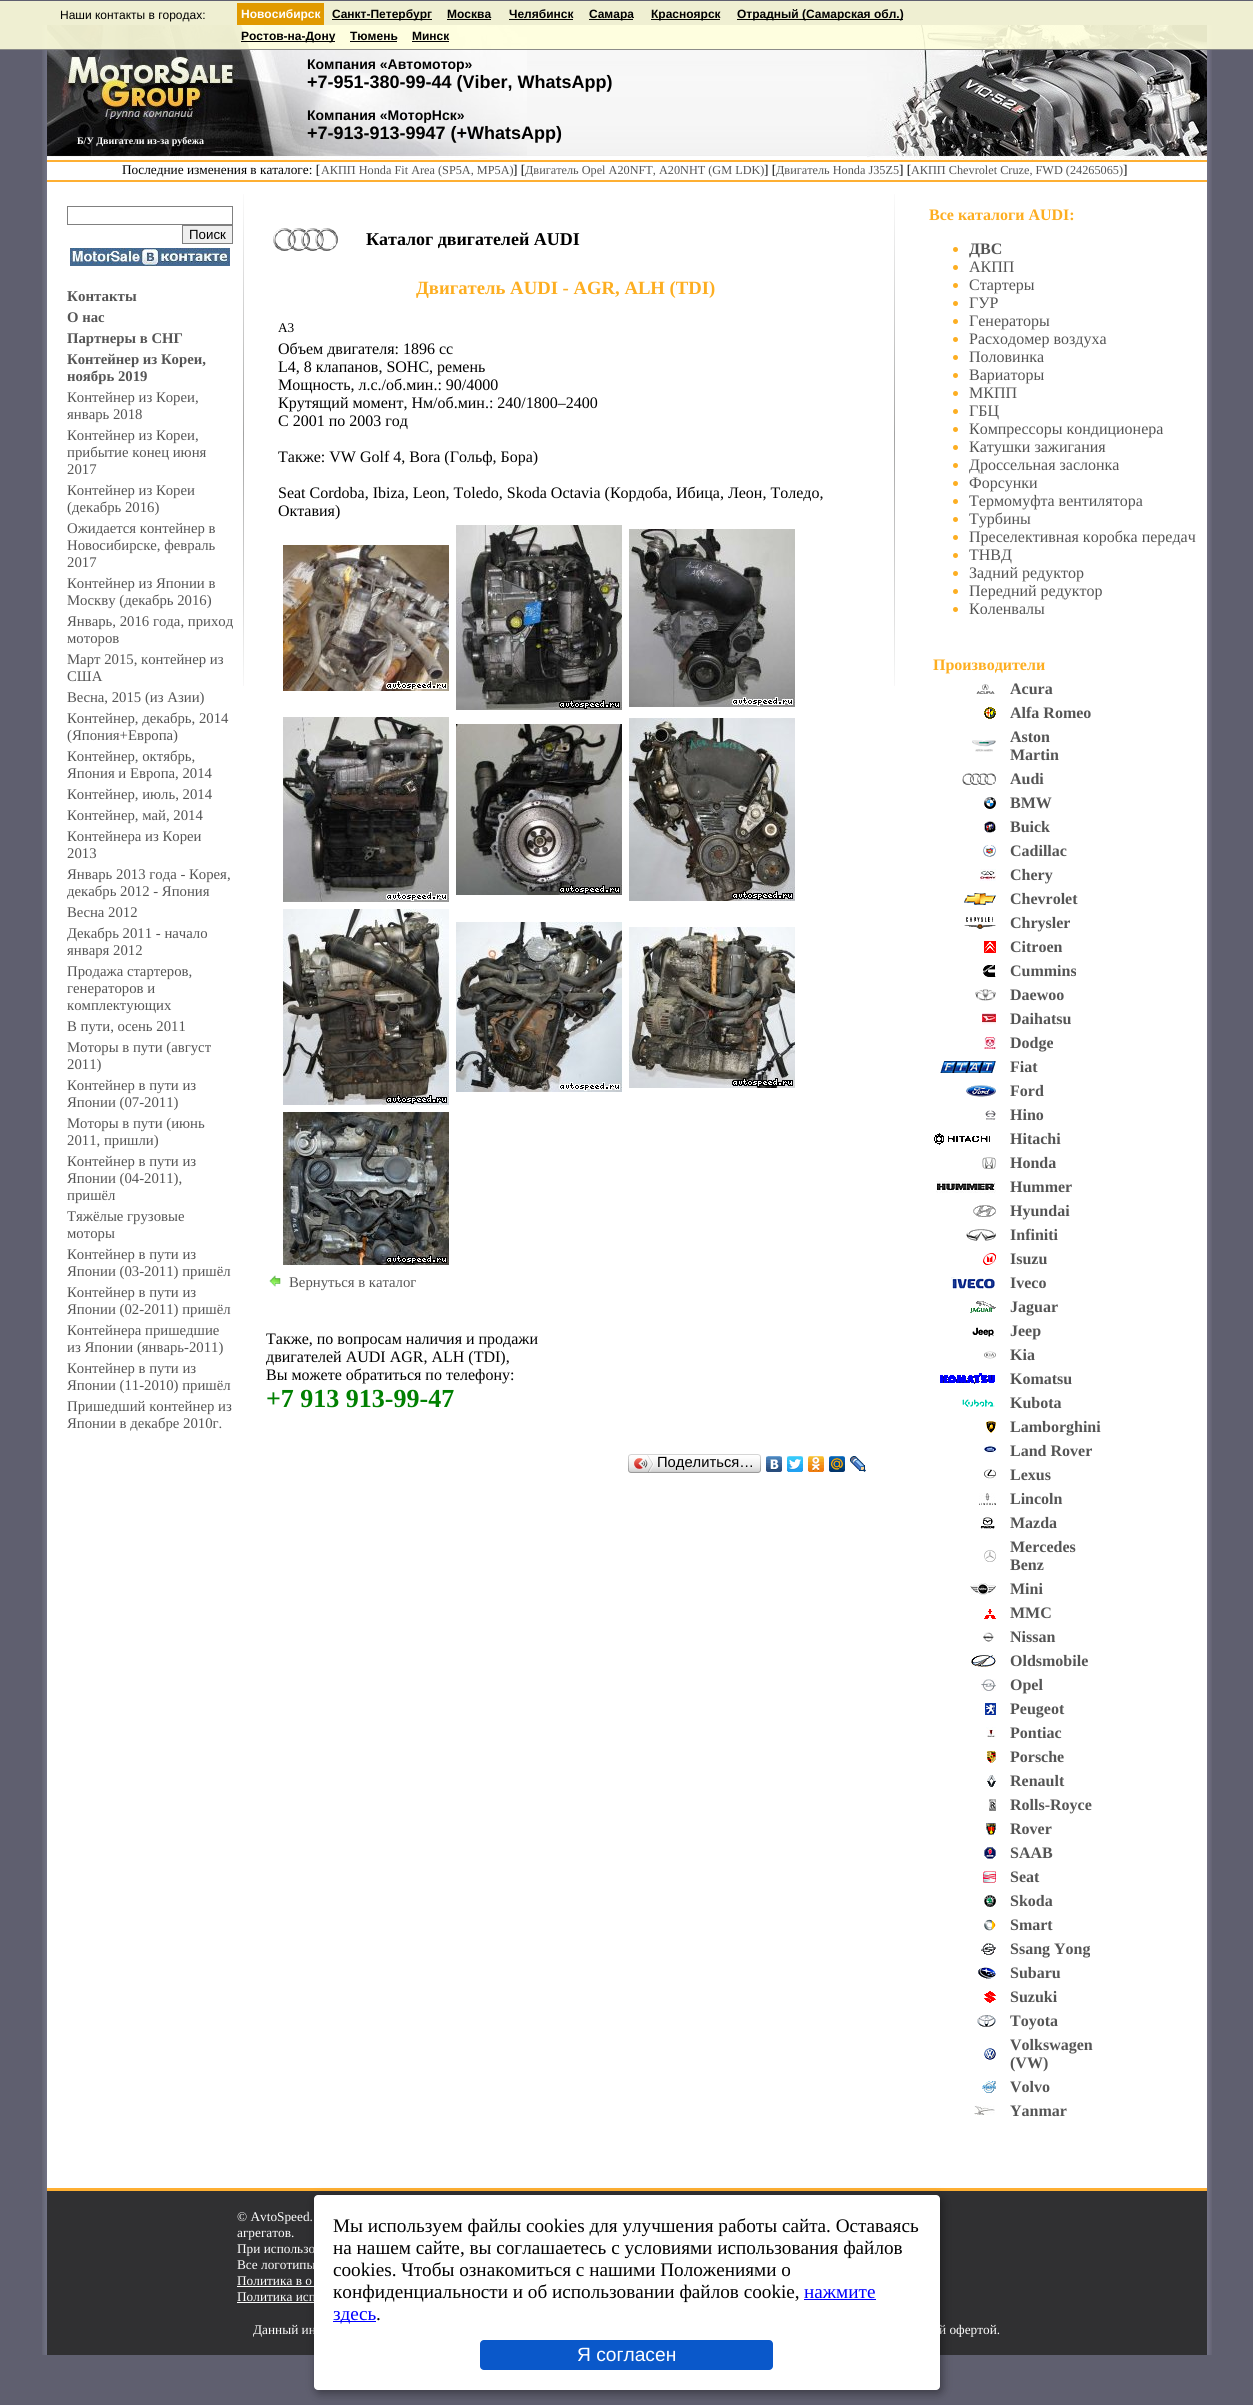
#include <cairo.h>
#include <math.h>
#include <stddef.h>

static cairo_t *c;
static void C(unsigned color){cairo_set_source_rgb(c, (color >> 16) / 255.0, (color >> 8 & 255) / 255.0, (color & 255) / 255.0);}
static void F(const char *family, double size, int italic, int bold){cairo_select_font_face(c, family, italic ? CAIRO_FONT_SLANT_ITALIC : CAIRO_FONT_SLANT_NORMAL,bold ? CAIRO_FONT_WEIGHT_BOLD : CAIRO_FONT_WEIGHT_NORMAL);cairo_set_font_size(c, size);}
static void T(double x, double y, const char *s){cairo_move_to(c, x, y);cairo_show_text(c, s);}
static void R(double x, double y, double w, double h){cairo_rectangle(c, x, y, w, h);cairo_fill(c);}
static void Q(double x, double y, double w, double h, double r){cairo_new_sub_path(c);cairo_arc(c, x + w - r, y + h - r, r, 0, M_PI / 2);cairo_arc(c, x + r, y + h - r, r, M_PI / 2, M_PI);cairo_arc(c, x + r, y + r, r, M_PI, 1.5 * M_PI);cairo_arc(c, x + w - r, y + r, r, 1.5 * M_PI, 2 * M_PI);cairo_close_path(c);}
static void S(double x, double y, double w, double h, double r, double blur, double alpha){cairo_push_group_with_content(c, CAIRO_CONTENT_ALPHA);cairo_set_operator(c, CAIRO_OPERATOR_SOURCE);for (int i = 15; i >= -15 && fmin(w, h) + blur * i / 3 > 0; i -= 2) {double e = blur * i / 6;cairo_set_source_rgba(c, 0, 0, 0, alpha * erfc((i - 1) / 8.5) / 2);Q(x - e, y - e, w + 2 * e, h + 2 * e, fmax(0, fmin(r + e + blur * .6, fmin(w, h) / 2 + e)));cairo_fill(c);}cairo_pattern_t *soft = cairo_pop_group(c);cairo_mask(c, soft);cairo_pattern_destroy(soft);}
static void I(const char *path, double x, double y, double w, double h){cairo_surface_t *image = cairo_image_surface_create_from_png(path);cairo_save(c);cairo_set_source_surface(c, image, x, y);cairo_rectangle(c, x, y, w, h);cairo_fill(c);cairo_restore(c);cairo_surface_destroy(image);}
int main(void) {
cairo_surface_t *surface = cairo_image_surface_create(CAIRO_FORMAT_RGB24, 1253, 2405);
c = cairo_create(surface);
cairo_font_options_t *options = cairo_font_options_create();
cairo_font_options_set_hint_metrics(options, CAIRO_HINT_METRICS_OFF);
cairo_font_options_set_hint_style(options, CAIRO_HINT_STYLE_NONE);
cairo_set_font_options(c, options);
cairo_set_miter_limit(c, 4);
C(0x5f5f6f);
cairo_paint(c);
I("1.png",42,25,5,2330);
I("2.png",527,25,340,131);
C(0xffffff);
R(47,156,1160,2032);
I("3.png",47,25,480,135);
I("4.png",867,25,340,135);
I("86.png",1207,25,5,2330);
cairo_set_source_rgba(c,1,1,0.867,0.9);
R(0,1,1253,49);
cairo_set_source_rgba(c,0.502,0.502,0.502,0.9);
R(0,49,1253,1);
F("Liberation Sans",12,0,0);
C(0x000000);
T(60,19,"Наши контакты в городах:");
C(0xe19a00);
R(237,3,87,22);
F("Liberation Sans",12,0,1);
C(0xffffff);
T(241,18,"Новосибирск");
C(0x000000);
R(332,19,100,1);
T(332,18,"Санкт-Петербург");
T(447,18,"Москва");
R(447,19,44,1);
T(509,18,"Челябинск");
R(509,19,64,1);
R(589,19,44,1);
T(589,18,"Самара");
R(651,19,69,1);
T(651,18,"Красноярск");
R(737,19,166,1);
T(737,18,"Отрадный (Самарская обл.)");
R(241,41,94,1);
T(241,40,"Ростов-на-Дону");
T(350,40,"Тюмень");
R(350,41,47,1);
T(412,40,"Минск");
R(412,41,37,1);
F("Liberation Sans",14,0,1);
T(307,69,"Компания «Автомотор»");
F("Liberation Sans",18,0,1);
T(307,88,"+7-951-380-99-44 (Viber, WhatsApp)");
F("Liberation Sans",14,0,1);
T(307,120,"Компания «МоторНск»");
F("Liberation Sans",18,0,1);
T(307,139,"+7-913-913-9947 (+WhatsApp)");
F("Liberation Serif",10,0,1);
C(0xffffff);
T(77,144,"Б/У Двигатели из-за рубежа");
C(0xfeaf32);
R(47,160,1160,2);
F("Liberation Serif",13.3,0,0);
C(0x000000);
T(122,174,"Последние изменения в каталоге: [");
F("Liberation Serif",12.25,0,0);
C(0x555555);
T(321,174,"АКПП Honda Fit Area (SP5A, MP5A)");
F("Liberation Serif",13.3,0,0);
C(0x000000);
T(513,174,"] [");
F("Liberation Serif",12.25,0,0);
C(0x555555);
T(525,174,"Двигатель Opel A20NFT, A20NHT (GM LDK)");
F("Liberation Serif",13.3,0,0);
C(0x000000);
T(764,174,"] [");
F("Liberation Serif",12.25,0,0);
C(0x555555);
T(776,174,"Двигатель Honda J35Z5");
F("Liberation Serif",13.3,0,0);
C(0x000000);
T(899,174,"] [");
F("Liberation Serif",12.25,0,0);
C(0x555555);
T(911,174,"АКПП Chevrolet Cruze, FWD (24265065)");
F("Liberation Serif",13.3,0,0);
C(0x000000);
T(1123,174,"]");
C(0xfeaf32);
R(47,180,1160,2);
cairo_rectangle(c,67.5,206.5,165,18);
C(0x808080);
cairo_set_line_width(c,1);
cairo_stroke(c);
C(0xefefef);
cairo_rectangle(c,182.5,225.5,50,18);
cairo_fill_preserve(c);
C(0x808080);
cairo_stroke(c);
F("Liberation Sans",13.3,0,0);
C(0x000000);
T(189,239,"Поиск");
I("5.png",70,248,160,18);
F("Liberation Serif",15,0,1);
C(0x555555);
T(67,301,"Контакты");
F("Liberation Serif",14.75,0,1);
T(67,322,"О нас");
T(67,343,"Партнеры в СНГ");
T(67,364,"Контейнер из Кореи,");
T(67,381,"ноябрь 2019");
F("Liberation Serif",14.75,0,0);
T(67,402,"Контейнер из Кореи,");
T(67,419,"январь 2018");
T(67,440,"Контейнер из Кореи,");
T(67,457,"прибытие конец июня");
T(67,474,"2017");
T(67,495,"Контейнер из Кореи");
T(67,512,"(декабрь 2016)");
T(67,533,"Ожидается контейнер в");
T(67,550,"Новосибирске, февраль");
T(67,567,"2017");
T(67,588,"Контейнер из Японии в");
T(67,605,"Москву (декабрь 2016)");
T(67,626,"Январь, 2016 года, приход");
T(67,643,"моторов");
T(67,664,"Март 2015, контейнер из");
T(67,681,"США");
T(67,702,"Весна, 2015 (из Азии)");
T(67,723,"Контейнер, декабрь, 2014");
T(67,740,"(Япония+Европа)");
T(67,761,"Контейнер, октябрь,");
T(67,778,"Япония и Европа, 2014");
T(67,799,"Контейнер, июль, 2014");
T(67,820,"Контейнер, май, 2014");
T(67,841,"Контейнера из Кореи");
T(67,858,"2013");
T(67,879,"Январь 2013 года - Корея,");
T(67,896,"декабрь 2012 - Япония");
T(67,917,"Весна 2012");
T(67,938,"Декабрь 2011 - начало");
T(67,955,"января 2012");
T(67,976,"Продажа стартеров,");
T(67,993,"генераторов и");
T(67,1010,"комплектующих");
T(67,1031,"В пути, осень 2011");
T(67,1052,"Моторы в пути (август");
T(67,1069,"2011)");
T(67,1090,"Контейнер в пути из");
T(67,1107,"Японии (07-2011)");
T(67,1128,"Моторы в пути (июнь");
T(67,1145,"2011, пришли)");
T(67,1166,"Контейнер в пути из");
T(67,1183,"Японии (04-2011),");
T(67,1200,"пришёл");
T(67,1221,"Тяжёлые грузовые");
T(67,1238,"моторы");
T(67,1259,"Контейнер в пути из");
T(67,1276,"Японии (03-2011) пришёл");
T(67,1297,"Контейнер в пути из");
T(67,1314,"Японии (02-2011) пришёл");
T(67,1335,"Контейнера пришедшие");
T(67,1352,"из Японии (январь-2011)");
T(67,1373,"Контейнер в пути из");
T(67,1390,"Японии (11-2010) пришёл");
T(67,1411,"Пришедший контейнер из");
T(67,1428,"Японии в декабре 2010г.");
I("6.png",243,194,1,492);
I("7.png",273,228,65,23);
F("Liberation Serif",18,0,1);
C(0x000000);
T(366,245,"Каталог двигателей AUDI");
F("Liberation Serif",18.7,0,1);
C(0xfdae21);
T(416,294,"Двигатель AUDI - AGR, ALH (TDI)");
F("Liberation Serif",13.3,0,0);
C(0x000000);
T(278,332,"A3");
F("Liberation Serif",16,0,0);
T(278,354,"Объем двигателя: 1896 cc");
T(278,372,"L4, 8 клапанов, SOHC, ремень");
T(278,390,"Мощность, л.с./об.мин.: 90/4000");
T(278,408,"Крутящий момент, Нм/об.мин.: 240/1800–2400");
T(278,426,"С 2001 по 2003 год");
T(278,462,"Также: VW Golf 4, Bora (Гольф, Бора)");
T(278,498,"Seat Cordoba, Ibiza, Leon, Toledo, Skoda Octavia (Кордоба, Ибица, Леон, Толедо,");
T(278,516,"Октавия)");
I("8.png",283,545,166,146);
I("9.png",456,525,166,185);
I("10.png",629,529,166,178);
I("11.png",283,717,166,185);
I("12.png",456,724,166,171);
I("13.png",629,718,166,183);
I("14.png",283,909,166,196);
I("15.png",456,922,166,170);
I("16.png",629,927,166,161);
I("17.png",283,1112,166,153);
I("18.png",269,1275,12,12);
F("Liberation Serif",14.75,0,0);
C(0x555555);
T(289,1287,"Вернуться в каталог");
F("Liberation Serif",16,0,0);
C(0x000000);
T(266,1344,"Также, по вопросам наличия и продажи");
T(266,1362,"двигателей AUDI AGR, ALH (TDI),");
T(266,1380,"Вы можете обратиться по телефону:");
F("Liberation Serif",26,0,1);
C(0x008000);
T(266,1407,"+7 913 913-99-47");
I("19.png",631,1454,127,19);
I("20.png",628,1454,3,19);
I("21.png",634,1455,20,17);
F("Liberation Sans",14.75,0,0);
C(0x000000);
T(657,1467,"Поделиться…");
I("22.png",758,1454,3,19);
I("23.png",766,1456,16,16);
I("24.png",787,1456,16,16);
I("25.png",808,1456,16,16);
I("26.png",829,1456,16,16);
I("27.png",850,1456,16,16);
I("6.png",894,194,1,492);
F("Liberation Serif",16,0,1);
C(0xfdae21);
T(929,220,"Все каталоги AUDI:");
cairo_new_path(c);
cairo_arc(c,955.5,249.5,2.5,0,2 * M_PI);
cairo_fill(c);
C(0x555555);
T(969,254,"ДВС");
C(0xfdae21);
cairo_new_path(c);
cairo_arc(c,955.5,267.5,2.5,0,2 * M_PI);
cairo_fill(c);
F("Liberation Serif",16,0,0);
C(0x555555);
T(969,272,"АКПП");
C(0xfdae21);
cairo_new_path(c);
cairo_arc(c,955.5,285.5,2.5,0,2 * M_PI);
cairo_fill(c);
C(0x555555);
T(969,290,"Стартеры");
C(0xfdae21);
cairo_new_path(c);
cairo_arc(c,955.5,303.5,2.5,0,2 * M_PI);
cairo_fill(c);
C(0x555555);
T(969,308,"ГУР");
C(0xfdae21);
cairo_new_path(c);
cairo_arc(c,955.5,321.5,2.5,0,2 * M_PI);
cairo_fill(c);
C(0x555555);
T(969,326,"Генераторы");
C(0xfdae21);
cairo_new_path(c);
cairo_arc(c,955.5,339.5,2.5,0,2 * M_PI);
cairo_fill(c);
C(0x555555);
T(969,344,"Расходомер воздуха");
C(0xfdae21);
cairo_new_path(c);
cairo_arc(c,955.5,357.5,2.5,0,2 * M_PI);
cairo_fill(c);
C(0x555555);
T(969,362,"Половинка");
C(0xfdae21);
cairo_new_path(c);
cairo_arc(c,955.5,375.5,2.5,0,2 * M_PI);
cairo_fill(c);
C(0x555555);
T(969,380,"Вариаторы");
C(0xfdae21);
cairo_new_path(c);
cairo_arc(c,955.5,393.5,2.5,0,2 * M_PI);
cairo_fill(c);
C(0x555555);
T(969,398,"МКПП");
C(0xfdae21);
cairo_new_path(c);
cairo_arc(c,955.5,411.5,2.5,0,2 * M_PI);
cairo_fill(c);
C(0x555555);
T(969,416,"ГБЦ");
C(0xfdae21);
cairo_new_path(c);
cairo_arc(c,955.5,429.5,2.5,0,2 * M_PI);
cairo_fill(c);
C(0x555555);
T(969,434,"Компрессоры кондиционера");
C(0xfdae21);
cairo_new_path(c);
cairo_arc(c,955.5,447.5,2.5,0,2 * M_PI);
cairo_fill(c);
C(0x555555);
T(969,452,"Катушки зажигания");
C(0xfdae21);
cairo_new_path(c);
cairo_arc(c,955.5,465.5,2.5,0,2 * M_PI);
cairo_fill(c);
C(0x555555);
T(969,470,"Дроссельная заслонка");
C(0xfdae21);
cairo_new_path(c);
cairo_arc(c,955.5,483.5,2.5,0,2 * M_PI);
cairo_fill(c);
C(0x555555);
T(969,488,"Форсунки");
C(0xfdae21);
cairo_new_path(c);
cairo_arc(c,955.5,501.5,2.5,0,2 * M_PI);
cairo_fill(c);
C(0x555555);
T(969,506,"Термомуфта вентилятора");
C(0xfdae21);
cairo_new_path(c);
cairo_arc(c,955.5,519.5,2.5,0,2 * M_PI);
cairo_fill(c);
C(0x555555);
T(969,524,"Турбины");
C(0xfdae21);
cairo_new_path(c);
cairo_arc(c,955.5,537.5,2.5,0,2 * M_PI);
cairo_fill(c);
C(0x555555);
T(969,542,"Преселективная коробка передач");
C(0xfdae21);
cairo_new_path(c);
cairo_arc(c,955.5,555.5,2.5,0,2 * M_PI);
cairo_fill(c);
C(0x555555);
T(969,560,"ТНВД");
C(0xfdae21);
cairo_new_path(c);
cairo_arc(c,955.5,573.5,2.5,0,2 * M_PI);
cairo_fill(c);
C(0x555555);
T(969,578,"Задний редуктор");
C(0xfdae21);
cairo_new_path(c);
cairo_arc(c,955.5,591.5,2.5,0,2 * M_PI);
cairo_fill(c);
C(0x555555);
T(969,596,"Передний редуктор");
C(0xfdae21);
cairo_new_path(c);
cairo_arc(c,955.5,609.5,2.5,0,2 * M_PI);
cairo_fill(c);
C(0x555555);
T(969,614,"Коленвалы");
F("Liberation Serif",16,0,1);
C(0xfdae21);
T(933,670,"Производители");
I("28.png",976,684,19,10);
C(0x555555);
T(1010,694,"Acura");
I("29.png",984,707,12,12);
T(1010,718,"Alfa Romeo");
I("30.png",972,740,24,12);
T(1010,742,"Aston");
T(1010,760,"Martin");
I("31.png",962,773,34,12);
T(1010,784,"Audi");
I("32.png",984,797,12,12);
T(1010,808,"BMW");
I("33.png",984,821,12,12);
T(1010,832,"Buick");
I("34.png",983,845,13,12);
T(1010,856,"Cadillac");
I("35.png",980,869,16,12);
T(1010,880,"Chery");
I("36.png",964,893,32,12);
T(1010,904,"Chevrolet");
I("37.png",964,917,32,12);
T(1010,928,"Chrysler");
I("38.png",984,941,12,12);
T(1010,952,"Citroen");
I("39.png",983,965,13,12);
T(1010,976,"Cummins");
I("40.png",975,989,21,12);
T(1010,1000,"Daewoo");
I("41.png",982,1013,14,12);
T(1010,1024,"Daihatsu");
I("42.png",984,1037,12,12);
T(1010,1048,"Dodge");
I("43.png",940,1061,56,12);
T(1010,1072,"Fiat");
I("44.png",966,1085,30,12);
T(1010,1096,"Ford");
I("45.png",985,1110,11,10);
T(1010,1120,"Hino");
I("46.png",934,1133,56,12);
T(1010,1144,"Hitachi");
I("47.png",982,1157,14,12);
T(1010,1168,"Honda");
I("48.png",936,1181,60,12);
T(1010,1192,"Hummer");
I("49.png",973,1205,23,12);
T(1010,1216,"Hyundai");
I("50.png",966,1229,30,12);
T(1010,1240,"Infiniti");
I("51.png",983,1253,13,12);
T(1010,1264,"Isuzu");
I("52.png",951,1277,44,12);
T(1010,1288,"Iveco");
I("53.png",970,1301,26,12);
T(1010,1312,"Jaguar");
I("54.png",972,1327,22,10);
T(1010,1336,"Jeep");
I("55.png",984,1351,12,8);
T(1010,1360,"Kia");
I("56.png",940,1373,55,11);
T(1010,1384,"Komatsu");
I("57.png",962,1399,33,8);
T(1010,1408,"Kubota");
I("58.png",986,1421,10,12);
T(1010,1432,"Lamborghini");
I("59.png",984,1445,12,8);
T(1010,1456,"Land Rover");
I("60.png",984,1469,12,11);
T(1010,1480,"Lexus");
I("61.png",979,1493,17,12);
T(1010,1504,"Lincoln");
I("62.png",980,1517,16,12);
T(1010,1528,"Mazda");
I("63.png",984,1550,12,12);
T(1010,1552,"Mercedes");
T(1010,1570,"Benz");
I("64.png",970,1583,26,12);
T(1010,1594,"Mini");
I("65.png",984,1609,12,10);
T(1010,1618,"MMC");
I("66.png",983,1632,11,10);
T(1010,1642,"Nissan");
I("67.png",971,1655,25,12);
T(1010,1666,"Oldsmobile");
I("68.png",981,1679,15,12);
T(1010,1690,"Opel");
I("69.png",985,1703,11,12);
T(1010,1714,"Peugeot");
I("70.png",986,1727,10,10);
T(1010,1738,"Pontiac");
I("71.png",987,1751,9,12);
T(1010,1762,"Porsche");
I("72.png",987,1775,9,12);
T(1010,1786,"Renault");
I("73.png",989,1799,7,12);
T(1010,1810,"Rolls-Royce");
I("74.png",986,1823,10,12);
T(1010,1834,"Rover");
I("75.png",984,1847,12,12);
T(1010,1858,"SAAB");
I("76.png",983,1871,13,12);
T(1010,1882,"Seat");
I("77.png",984,1895,12,12);
T(1010,1906,"Skoda");
I("78.png",984,1919,12,12);
T(1010,1930,"Smart");
I("79.png",981,1943,15,12);
T(1010,1954,"Ssang Yong");
I("80.png",978,1967,18,12);
T(1010,1978,"Subaru");
I("81.png",984,1991,12,12);
T(1010,2002,"Suzuki");
I("82.png",977,2015,19,12);
T(1010,2026,"Toyota");
I("83.png",984,2048,12,12);
T(1010,2050,"Volkswagen");
T(1010,2068,"(VW)");
I("84.png",982,2081,14,12);
T(1010,2092,"Volvo");
I("85.png",974,2105,21,10);
T(1010,2116,"Yanmar");
C(0xfeaf32);
R(47,2188,1160,3);
C(0x303032);
R(47,2191,1160,164);
F("Liberation Serif",13.3,0,0);
C(0xffffff);
T(237,2221,"© AvtoSpeed.");
T(237,2237,"агрегатов.");
T(237,2253,"При использо");
T(237,2269,"Все логотипы");
T(237,2285,"Политика в о");
R(237,2286,77,1);
T(237,2301,"Политика исп");
R(237,2302,77,1);
T(253,2334,"Данный ин");
T(939,2334,"й офертой.");
C(0x000000);
S(316,2198,626,195,4,5,.4);
C(0xffffff);
Q(314,2195,626,195,4);
cairo_fill(c);
F("Liberation Serif",19.2,0,0);
C(0x000000);
T(333,2232,"Мы используем файлы cookies для улучшения работы сайта. Оставаясь");
T(333,2254,"на нашем сайте, вы соглашаетесь с условиями использования файлов");
T(333,2276,"cookies. Чтобы ознакомиться с нашими Положениями о");
T(333,2298,"конфиденциальности и об использовании файлов cookie,");
C(0x0000ff);
T(804,2298,"нажмите");
R(804,2299,72,1);
R(333,2321,43,1);
T(333,2320,"здесь");
C(0x000000);
T(376,2320,".");
C(0x0a58ca);
Q(480,2340,293,30,4);
cairo_fill(c);
F("Liberation Sans",19.2,0,0);
C(0xffffff);
T(577,2361,"Я согласен");
cairo_surface_write_to_png(surface, "o.png");
cairo_font_options_destroy(options);
cairo_destroy(c);
cairo_surface_destroy(surface);
return 0;
}
